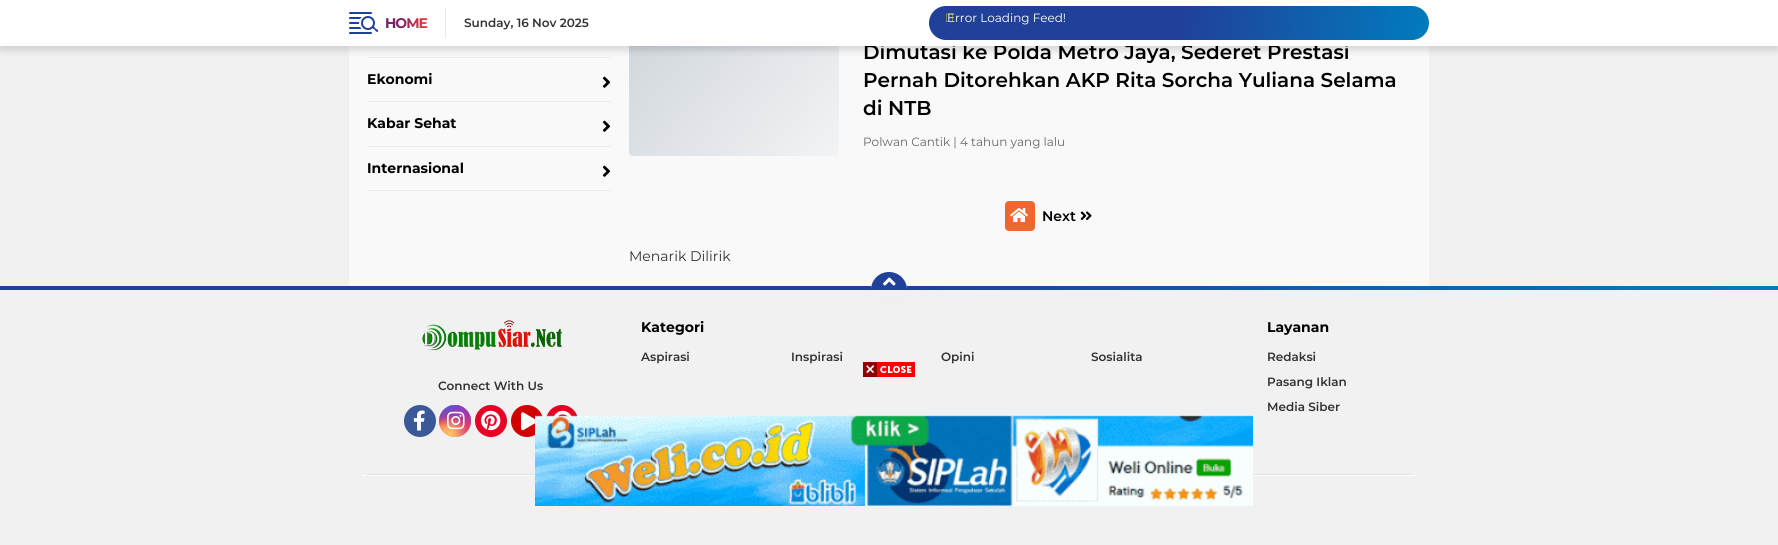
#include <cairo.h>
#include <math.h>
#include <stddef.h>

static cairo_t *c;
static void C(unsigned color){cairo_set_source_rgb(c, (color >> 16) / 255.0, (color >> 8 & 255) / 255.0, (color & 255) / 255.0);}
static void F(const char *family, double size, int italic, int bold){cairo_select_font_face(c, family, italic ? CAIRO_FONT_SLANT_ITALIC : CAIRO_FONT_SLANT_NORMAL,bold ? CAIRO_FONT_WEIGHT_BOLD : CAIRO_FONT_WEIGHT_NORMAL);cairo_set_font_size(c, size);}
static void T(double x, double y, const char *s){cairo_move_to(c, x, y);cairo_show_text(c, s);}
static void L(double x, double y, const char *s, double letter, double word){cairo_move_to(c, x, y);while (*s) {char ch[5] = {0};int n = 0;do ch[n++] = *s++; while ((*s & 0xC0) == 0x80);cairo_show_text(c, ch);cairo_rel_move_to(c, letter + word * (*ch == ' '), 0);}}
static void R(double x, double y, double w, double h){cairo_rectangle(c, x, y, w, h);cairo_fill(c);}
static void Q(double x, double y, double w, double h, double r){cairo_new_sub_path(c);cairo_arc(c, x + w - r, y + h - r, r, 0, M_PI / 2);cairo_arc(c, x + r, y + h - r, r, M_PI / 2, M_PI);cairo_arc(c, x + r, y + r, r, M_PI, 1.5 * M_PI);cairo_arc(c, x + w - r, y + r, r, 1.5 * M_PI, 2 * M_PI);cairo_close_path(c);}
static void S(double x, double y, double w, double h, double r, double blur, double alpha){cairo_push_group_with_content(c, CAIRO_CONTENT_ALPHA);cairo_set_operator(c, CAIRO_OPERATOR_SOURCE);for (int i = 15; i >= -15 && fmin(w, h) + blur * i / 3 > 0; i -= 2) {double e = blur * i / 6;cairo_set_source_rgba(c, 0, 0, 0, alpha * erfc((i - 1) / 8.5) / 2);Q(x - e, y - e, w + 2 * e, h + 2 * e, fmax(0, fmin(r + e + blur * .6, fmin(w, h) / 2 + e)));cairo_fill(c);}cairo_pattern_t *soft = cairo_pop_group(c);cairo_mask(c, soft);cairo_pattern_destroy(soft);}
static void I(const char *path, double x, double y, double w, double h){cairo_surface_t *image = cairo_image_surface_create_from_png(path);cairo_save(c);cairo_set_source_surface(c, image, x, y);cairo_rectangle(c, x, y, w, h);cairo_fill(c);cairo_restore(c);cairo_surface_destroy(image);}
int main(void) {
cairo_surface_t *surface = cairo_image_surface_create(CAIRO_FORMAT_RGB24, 1778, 545);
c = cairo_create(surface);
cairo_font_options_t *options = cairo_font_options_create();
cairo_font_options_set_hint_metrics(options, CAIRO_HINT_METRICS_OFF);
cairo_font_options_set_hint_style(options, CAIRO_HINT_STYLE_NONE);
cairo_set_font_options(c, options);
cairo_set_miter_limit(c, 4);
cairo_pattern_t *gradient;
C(0xf1f1f1);
cairo_paint(c);
C(0xf9f9f9);
R(349,46,1080,240);
C(0xe9ebee);
R(367,57,244,1);
gradient = cairo_pattern_create_linear(1240,387,690,-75);
cairo_pattern_add_color_stop_rgba(gradient,0,0.808,0.831,0.855,1);
cairo_pattern_add_color_stop_rgba(gradient,.5,1,1,1,1);
cairo_pattern_add_color_stop_rgba(gradient,1,0.808,0.831,0.855,1);
cairo_set_source(c,gradient);
cairo_pattern_destroy(gradient);
Q(629,-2,210,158,4);
cairo_fill(c);
C(0x000000);
S(0,4,1778,46,0,4,.15);
F("Montserrat SemiBold",20,0,0);
C(0x000000);
T(863,59,"Dimutasi ke Polda Metro Jaya, Sederet Prestasi");
C(0xffffff);
R(0,0,1778,46);
C(0x21409a);
Q(349,12,23,2,1);
cairo_fill(c);
Q(349,17,23,2,1);
cairo_fill(c);
Q(349,22,23,2,1);
cairo_fill(c);
Q(349,27,23,2,1);
cairo_fill(c);
C(0xffffff);
cairo_arc(c,367,23,8,0,2 * M_PI);
cairo_fill(c);
cairo_arc(c,368,23,6,0,2 * M_PI);
C(0x21409a);
cairo_stroke(c);
cairo_new_path(c);
cairo_move_to(c,372,26.5);
cairo_curve_to(c,373,25,375,27.5,375.5,28.5);
cairo_curve_to(c,376.5,29,379,30.5,378,31.5);
cairo_curve_to(c,377,33,375,30.5,374.5,29.5);
cairo_curve_to(c,373.5,29,371,27.5,372,26.5);
cairo_close_path(c);
cairo_fill(c);
Q(349,32,23,2,1);
cairo_fill(c);
C(0xe9ebee);
R(445,8,1,30);
F("Montserrat",14,0,1);
gradient = cairo_pattern_create_linear(385,23,427,23);
cairo_pattern_add_color_stop_rgba(gradient,.3,0.475,0.129,0.4,1);
cairo_pattern_add_color_stop_rgba(gradient,1,0.929,0.235,0.247,1);
cairo_set_source(c,gradient);
cairo_pattern_destroy(gradient);
L(385,28,"HOME",-1,0);
F("Montserrat SemiBold",12,0,0);
C(0x333333);
T(464,27,"Sunday, 16 Nov 2025");
gradient = cairo_pattern_create_linear(934,-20,1424,66);
cairo_pattern_add_color_stop_rgba(gradient,.5,0.129,0.251,0.604,1);
cairo_pattern_add_color_stop_rgba(gradient,1,0,0.486,0.741,1);
cairo_set_source(c,gradient);
cairo_pattern_destroy(gradient);
Q(929,6,500,34,17);
cairo_fill(c);
F("Montserrat",12,0,0);
C(0xffffff);
T(947,22,"Error Loading Feed!");
I("1.png",946,13,7,9);
C(0xe9ebee);
R(367,101,244,1);
F("Montserrat",14,0,1);
C(0x000000);
T(367,84,"Ekonomi");
I("2.png",602,76,9,12);
C(0xe9ebee);
R(367,146,244,1);
C(0x000000);
T(367,128,"Kabar Sehat");
I("2.png",602,120,9,12);
C(0xe9ebee);
R(367,190,244,1);
C(0x000000);
T(367,173,"Internasional");
I("2.png",602,165,9,12);
F("Montserrat SemiBold",20,0,0);
T(863,87,"Pernah Ditorehkan AKP Rita Sorcha Yuliana Selama");
T(863,115,"di NTB");
F("Montserrat",12,0,0);
C(0x666666);
T(863,146,"Polwan Cantik | 4 tahun yang lalu");
C(0xef662f);
Q(1005,201,30,30,4);
cairo_fill(c);
I("3.png",1010,208,18,14);
F("Montserrat SemiBold",14,0,0);
C(0x000000);
T(1042,221,"Next");
I("4.png",1080,211,12,10);
F("Montserrat",14,0,0);
C(0x333333);
T(629,261,"Menarik Dilirik");
gradient = cairo_pattern_create_linear(26,136,1752,440);
cairo_pattern_add_color_stop_rgba(gradient,.5,0.129,0.251,0.604,1);
cairo_pattern_add_color_stop_rgba(gradient,1,0,0.486,0.741,1);
cairo_set_source(c,gradient);
cairo_pattern_destroy(gradient);
R(0,286,1778,4);
C(0xf0f0f0);
cairo_new_path(c);
cairo_arc(c,889,290,18,0,2 * M_PI);
cairo_fill(c);
C(0x21409a);
cairo_new_path(c);
cairo_move_to(c,889,272);
cairo_curve_to(c,899,272,907,280,907,290);
cairo_line_to(c,871,290);
cairo_curve_to(c,871,280,879,272,889,272);
cairo_close_path(c);
cairo_fill(c);
I("5.png",883,277,13,9);
C(0xe0e0e0);
R(367,474,1044,1);
I("6.png",422,320,140,31);
F("Montserrat SemiBold",12,0,0);
C(0x333333);
T(438,390,"Connect With Us");
C(0x3b5998);
cairo_new_path(c);
cairo_arc(c,420,421,16,0,2 * M_PI);
cairo_fill(c);
I("7.png",413,410,12,21);
gradient = cairo_pattern_create_linear(455,405,455,437);
cairo_pattern_add_color_stop_rgba(gradient,0,0.396,0.349,0.792,1);
cairo_pattern_add_color_stop_rgba(gradient,.3,0.737,0.192,0.561,1);
cairo_pattern_add_color_stop_rgba(gradient,.5,0.89,0.247,0.373,1);
cairo_pattern_add_color_stop_rgba(gradient,.7,0.969,0.463,0.22,1);
cairo_pattern_add_color_stop_rgba(gradient,1,0.996,0.776,0.427,1);
cairo_set_source(c,gradient);
cairo_pattern_destroy(gradient);
cairo_arc(c,455,421,16,0,2 * M_PI);
cairo_fill(c);
gradient = cairo_pattern_create_radial(471,437,0,471,437,45);
cairo_pattern_add_color_stop_rgba(gradient,0,0.851,0.192,0.478,1);
cairo_pattern_add_color_stop_rgba(gradient,1,0.851,0.192,0.478,0);
cairo_set_source(c,gradient);
cairo_pattern_destroy(gradient);
cairo_arc(c,455,421,16,0,2 * M_PI);
cairo_fill(c);
gradient = cairo_pattern_create_radial(0,0,0,0,0,1);
cairo_pattern_set_matrix(gradient, &(cairo_matrix_t){1.0 / 27, 0, 0, 1.0 / 54, -1.0 * 458 / 27, -1.0 * 399 / 54});
cairo_pattern_add_color_stop_rgba(gradient,0,0.537,0.239,0.761,1);
cairo_pattern_add_color_stop_rgba(gradient,.5,0.537,0.239,0.761,0);
cairo_set_source(c,gradient);
cairo_pattern_destroy(gradient);
cairo_arc(c,455,421,16,0,2 * M_PI);
cairo_fill(c);
gradient = cairo_pattern_create_radial(471,405,0,471,405,45);
cairo_pattern_add_color_stop_rgba(gradient,0,0.537,0.239,0.761,1);
cairo_pattern_add_color_stop_rgba(gradient,.5,0.537,0.239,0.761,0);
cairo_set_source(c,gradient);
cairo_pattern_destroy(gradient);
cairo_arc(c,455,421,16,0,2 * M_PI);
cairo_fill(c);
gradient = cairo_pattern_create_radial(0,0,0,0,0,1);
cairo_pattern_set_matrix(gradient, &(cairo_matrix_t){1.0 / 36, 0, 0, 1.0 / 68, -1.0 * 445 / 36, -1.0 * 389 / 68});
cairo_pattern_add_color_stop_rgba(gradient,0,0.322,0.345,0.812,1);
cairo_pattern_add_color_stop_rgba(gradient,.5,0.322,0.345,0.812,0);
cairo_set_source(c,gradient);
cairo_pattern_destroy(gradient);
cairo_arc(c,455,421,16,0,2 * M_PI);
cairo_fill(c);
gradient = cairo_pattern_create_radial(0,0,0,0,0,1);
cairo_pattern_set_matrix(gradient, &(cairo_matrix_t){1.0 / 45, 0, 0, 1.0 / 57, -1.0 * 439 / 45, -1.0 * 397 / 57});
cairo_pattern_add_color_stop_rgba(gradient,0,0.322,0.345,0.812,1);
cairo_pattern_add_color_stop_rgba(gradient,.5,0.322,0.345,0.812,0);
cairo_set_source(c,gradient);
cairo_pattern_destroy(gradient);
cairo_arc(c,455,421,16,0,2 * M_PI);
cairo_fill(c);
gradient = cairo_pattern_create_radial(439,450,0,439,450,55);
cairo_pattern_add_color_stop_rgba(gradient,0,0.996,0.773,0.392,1);
cairo_pattern_add_color_stop_rgba(gradient,.5,0.996,0.773,0.392,0);
cairo_set_source(c,gradient);
cairo_pattern_destroy(gradient);
cairo_arc(c,455,421,16,0,2 * M_PI);
cairo_fill(c);
gradient = cairo_pattern_create_radial(450,434,0,450,434,36);
cairo_pattern_add_color_stop_rgba(gradient,0,0.996,0.773,0.392,1);
cairo_pattern_add_color_stop_rgba(gradient,.5,0.996,0.773,0.392,0);
cairo_set_source(c,gradient);
cairo_pattern_destroy(gradient);
cairo_arc(c,455,421,16,0,2 * M_PI);
cairo_fill(c);
I("8.png",447,411,18,19);
C(0xe60023);
cairo_arc(c,491,421,16,0,2 * M_PI);
cairo_fill(c);
I("9.png",481,410,20,21);
C(0xd00000);
cairo_arc(c,527,421,16,0,2 * M_PI);
cairo_fill(c);
I("10.png",521,412,14,19);
C(0xe60023);
cairo_arc(c,562,421,16,0,2 * M_PI);
cairo_fill(c);
I("11.png",553,410,19,7);
F("Montserrat",14,0,1);
C(0x000000);
T(641,332,"Kategori");
F("Montserrat SemiBold",12,0,0);
C(0x333333);
T(641,361,"Aspirasi");
T(791,361,"Inspirasi");
T(941,361,"Opini");
T(1091,361,"Sosialita");
F("Montserrat",14,0,1);
C(0x000000);
T(1267,332,"Layanan");
F("Montserrat SemiBold",12,0,0);
C(0x333333);
T(1267,361,"Redaksi");
T(1267,386,"Pasang Iklan");
T(1267,411,"Media Siber");
C(0xffffff);
R(362,475,1054,1);
I("12.png",863,362,52,15);
I("13.png",535,415,718,91);
cairo_surface_write_to_png(surface, "o.png");
cairo_font_options_destroy(options);
cairo_destroy(c);
cairo_surface_destroy(surface);
return 0;
}
